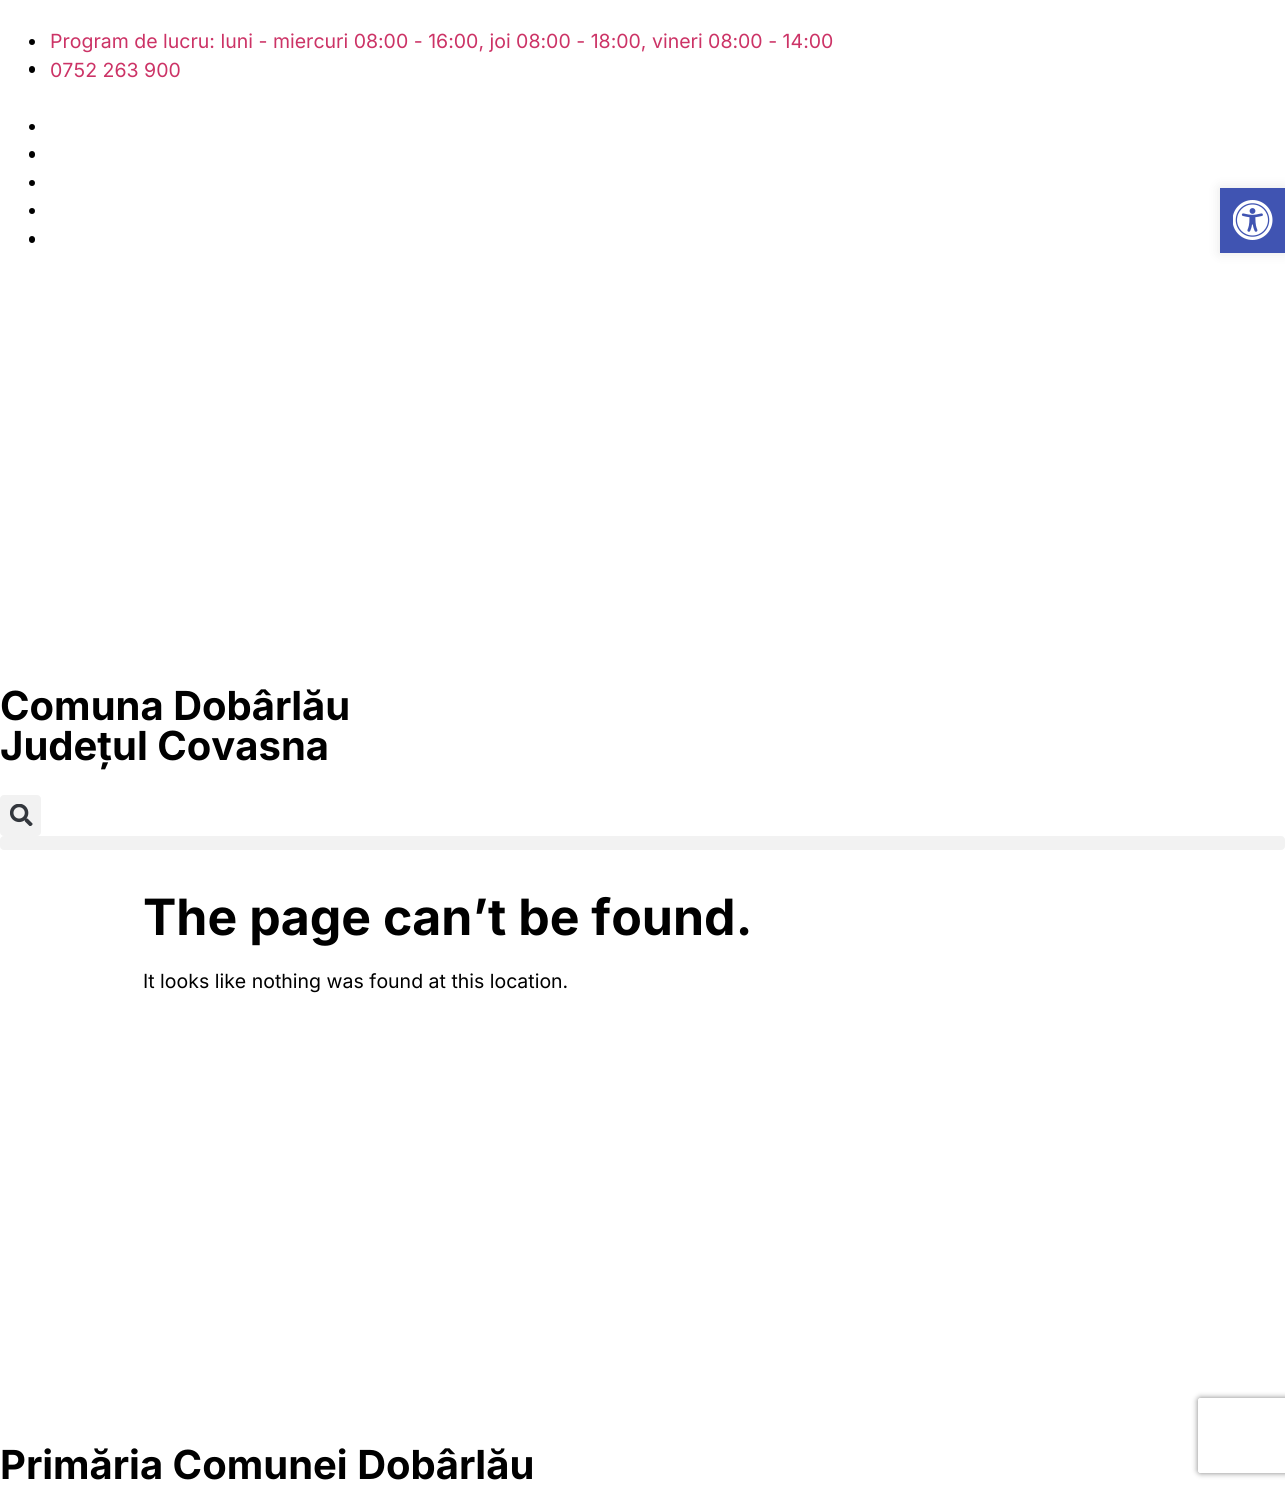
#include <cairo.h>
#include <math.h>
#include <stddef.h>

static cairo_t *c;
static void C(unsigned color){cairo_set_source_rgb(c, (color >> 16) / 255.0, (color >> 8 & 255) / 255.0, (color & 255) / 255.0);}
static void F(const char *family, double size, int italic, int bold){cairo_select_font_face(c, family, italic ? CAIRO_FONT_SLANT_ITALIC : CAIRO_FONT_SLANT_NORMAL,bold ? CAIRO_FONT_WEIGHT_BOLD : CAIRO_FONT_WEIGHT_NORMAL);cairo_set_font_size(c, size);}
static void T(double x, double y, const char *s){cairo_move_to(c, x, y);cairo_show_text(c, s);}
static void R(double x, double y, double w, double h){cairo_rectangle(c, x, y, w, h);cairo_fill(c);}
static void Q(double x, double y, double w, double h, double r){cairo_new_sub_path(c);cairo_arc(c, x + w - r, y + h - r, r, 0, M_PI / 2);cairo_arc(c, x + r, y + h - r, r, M_PI / 2, M_PI);cairo_arc(c, x + r, y + r, r, M_PI, 1.5 * M_PI);cairo_arc(c, x + w - r, y + r, r, 1.5 * M_PI, 2 * M_PI);cairo_close_path(c);}
static void S(double x, double y, double w, double h, double r, double blur, double alpha){cairo_push_group_with_content(c, CAIRO_CONTENT_ALPHA);cairo_set_operator(c, CAIRO_OPERATOR_SOURCE);for (int i = 15; i >= -15 && fmin(w, h) + blur * i / 3 > 0; i -= 2) {double e = blur * i / 6;cairo_set_source_rgba(c, 0, 0, 0, alpha * erfc((i - 1) / 8.5) / 2);Q(x - e, y - e, w + 2 * e, h + 2 * e, fmax(0, fmin(r + e + blur * .6, fmin(w, h) / 2 + e)));cairo_fill(c);}cairo_pattern_t *soft = cairo_pop_group(c);cairo_mask(c, soft);cairo_pattern_destroy(soft);}
static void I(const char *path, double x, double y, double w, double h){cairo_surface_t *image = cairo_image_surface_create_from_png(path);cairo_save(c);cairo_set_source_surface(c, image, x, y);cairo_rectangle(c, x, y, w, h);cairo_fill(c);cairo_restore(c);cairo_surface_destroy(image);}
int main(void) {
cairo_surface_t *surface = cairo_image_surface_create(CAIRO_FORMAT_RGB24, 1285, 1489);
c = cairo_create(surface);
cairo_font_options_t *options = cairo_font_options_create();
cairo_font_options_set_hint_metrics(options, CAIRO_HINT_METRICS_OFF);
cairo_font_options_set_hint_style(options, CAIRO_HINT_STYLE_NONE);
cairo_set_font_options(c, options);
cairo_set_miter_limit(c, 4);
C(0xffffff);
cairo_paint(c);
C(0x000000);
cairo_arc(c,32,42,3,0,2 * M_PI);
cairo_fill(c);
F("Inter",19.5,0,0);
C(0xcc3366);
T(50,48,"Program de lucru: luni - miercuri 08:00 - 16:00, joi 08:00 - 18:00, vineri 08:00 - 14:00");
C(0x000000);
Q(29,66,6,7,3);
cairo_fill(c);
C(0xcc3366);
T(50,77,"0752 263 900");
C(0x000000);
cairo_new_path(c);
cairo_arc(c,32,127,3,0,2 * M_PI);
cairo_fill(c);
Q(29,151,6,7,3);
cairo_fill(c);
cairo_arc(c,32,183,3,0,2 * M_PI);
cairo_fill(c);
cairo_arc(c,32,211,3,0,2 * M_PI);
cairo_fill(c);
Q(29,236,6,7,3);
cairo_fill(c);
F("Inter",40,0,1);
T(0,720,"Comuna Dobârlău");
T(0,760,"Județul Covasna");
C(0xf2f2f2);
Q(0,795,41,41,4);
cairo_fill(c);
I("1.png",10,804,23,22);
Q(0,836,1285,14,4);
cairo_fill(c);
C(0x000000);
S(1220,188,65,65,0,6,.1);
C(0x4054b2);
R(1220,188,65,65);
I("2.png",1233,200,40,40);
F("Inter",50,0,1);
C(0x000000);
T(143,935,"The page can’t be found.");
F("Inter",19.5,0,0);
T(143,988,"It looks like nothing was found at this location.");
F("Inter",40,0,1);
T(0,1479,"Primăria Comunei Dobârlău");
cairo_save(c);
cairo_set_fill_rule(c,CAIRO_FILL_RULE_EVEN_ODD);
cairo_new_path(c);
cairo_move_to(c,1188,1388);
cairo_line_to(c,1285,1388);
cairo_line_to(c,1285,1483);
cairo_line_to(c,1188,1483);
cairo_close_path(c);
cairo_move_to(c,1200.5,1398);
cairo_line_to(c,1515.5,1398);
cairo_curve_to(c,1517,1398,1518,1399,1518,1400.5);
cairo_line_to(c,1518,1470.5);
cairo_curve_to(c,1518,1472,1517,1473,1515.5,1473);
cairo_line_to(c,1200.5,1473);
cairo_curve_to(c,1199,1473,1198,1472,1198,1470.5);
cairo_line_to(c,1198,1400.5);
cairo_curve_to(c,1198,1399,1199,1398,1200.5,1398);
cairo_close_path(c);
cairo_clip(c);
C(0x808080);
S(1198,1398,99,75,2.5,3,1);
cairo_restore(c);
cairo_surface_write_to_png(surface, "o.png");
cairo_font_options_destroy(options);
cairo_destroy(c);
cairo_surface_destroy(surface);
return 0;
}
